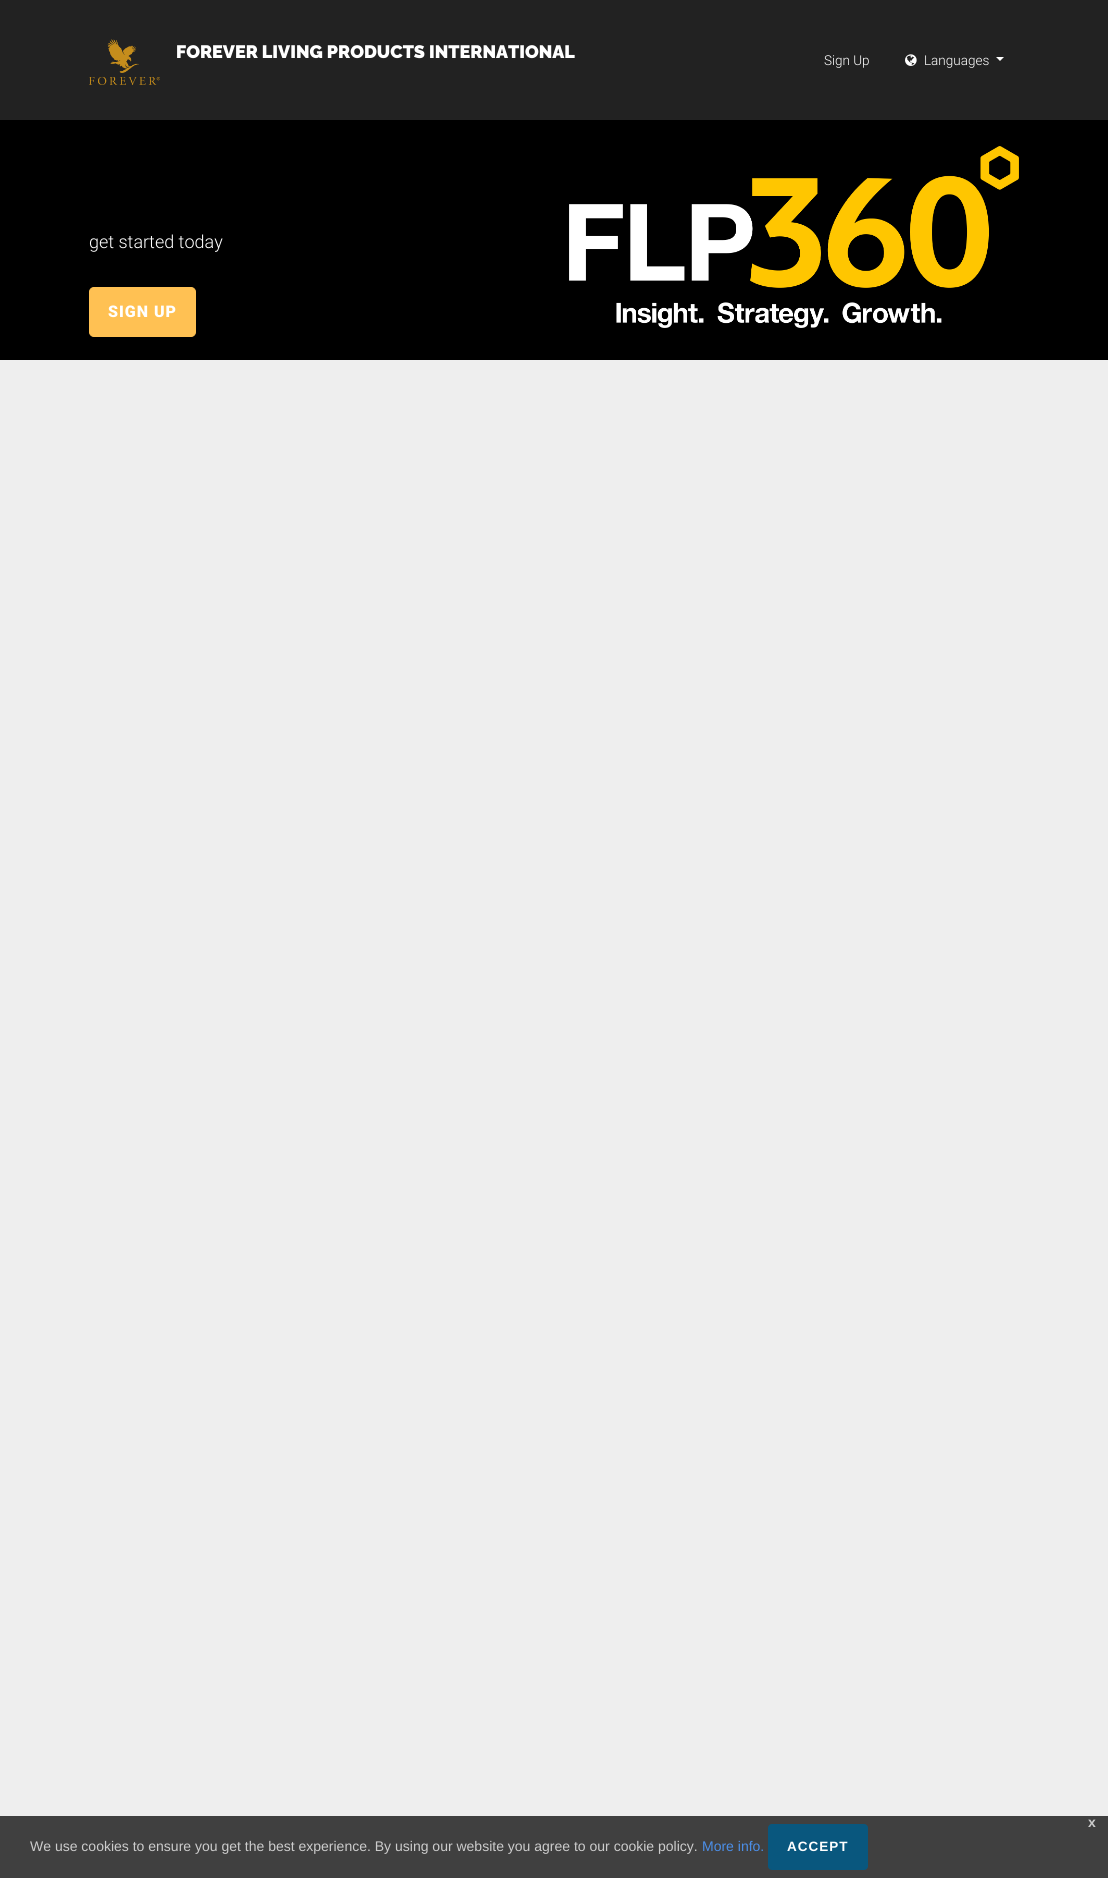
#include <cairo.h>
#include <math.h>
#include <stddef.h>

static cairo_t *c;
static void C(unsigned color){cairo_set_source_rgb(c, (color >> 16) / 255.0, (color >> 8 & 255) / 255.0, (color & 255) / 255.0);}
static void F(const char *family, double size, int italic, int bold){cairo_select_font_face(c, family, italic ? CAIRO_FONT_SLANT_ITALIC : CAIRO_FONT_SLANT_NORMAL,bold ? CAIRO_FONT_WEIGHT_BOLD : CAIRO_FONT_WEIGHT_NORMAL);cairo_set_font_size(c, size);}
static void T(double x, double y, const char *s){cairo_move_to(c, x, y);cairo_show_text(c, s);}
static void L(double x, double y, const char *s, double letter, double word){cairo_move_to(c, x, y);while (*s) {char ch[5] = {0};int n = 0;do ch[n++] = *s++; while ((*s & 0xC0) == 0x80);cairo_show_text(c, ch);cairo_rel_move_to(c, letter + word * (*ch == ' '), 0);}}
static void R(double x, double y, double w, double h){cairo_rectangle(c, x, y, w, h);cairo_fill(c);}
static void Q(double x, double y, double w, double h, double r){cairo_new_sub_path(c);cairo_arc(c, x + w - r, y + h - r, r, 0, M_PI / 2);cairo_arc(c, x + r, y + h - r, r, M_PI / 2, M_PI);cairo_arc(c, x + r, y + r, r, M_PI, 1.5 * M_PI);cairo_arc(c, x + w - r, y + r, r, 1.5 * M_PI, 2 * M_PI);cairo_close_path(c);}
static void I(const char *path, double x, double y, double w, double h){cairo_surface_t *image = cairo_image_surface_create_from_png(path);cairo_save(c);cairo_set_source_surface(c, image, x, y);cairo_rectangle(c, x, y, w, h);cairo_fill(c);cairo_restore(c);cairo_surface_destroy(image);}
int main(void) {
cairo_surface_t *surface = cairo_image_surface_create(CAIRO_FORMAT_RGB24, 1108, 1878);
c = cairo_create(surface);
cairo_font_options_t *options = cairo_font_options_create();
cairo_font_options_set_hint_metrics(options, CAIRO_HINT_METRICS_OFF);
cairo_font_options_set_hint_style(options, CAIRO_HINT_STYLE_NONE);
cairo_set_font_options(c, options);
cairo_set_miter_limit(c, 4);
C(0xeeeeee);
cairo_paint(c);
C(0x222222);
R(0,0,1108,120);
I("1.png",89,39,71,46);
F("Raleway Black",18,0,0);
C(0xffffff);
T(176,58,"FOREVER LIVING PRODUCTS INTERNATIONAL");
F("Roboto Light",13.5,0,0);
T(824,65,"Sign Up");
I("2.png",905,54,12,12);
T(924,65,"Languages");
cairo_new_path(c);
cairo_move_to(c,996,57);
cairo_line_to(c,1004,57);
cairo_line_to(c,1000,61);
cairo_close_path(c);
cairo_fill(c);
C(0x000000);
R(0,120,1108,240);
F("Roboto Light",18,0,0);
C(0xffffff);
T(89,248,"get started today");
C(0xffc153);
Q(89.5,287.5,106,49,4.5);
cairo_fill_preserve(c);
cairo_set_line_width(c,1);
cairo_stroke(c);
F("Roboto Black",16,0,0);
C(0xffffff);
L(108,317,"SIGN UP",1,0);
I("3.png",569,146,450,182);
C(0x404040);
R(0,1816,1108,62);
F("Liberation Sans",14,0,1);
C(0xcccccc);
T(1088,1827,"x");
F("Liberation Sans",14,0,0);
T(30,1851,"We use cookies to ensure you get the best experience. By using our website you agree to our cookie policy.");
C(0x4b8ee7);
T(702,1851,"More info.");
C(0x09577e);
Q(768.5,1824.5,99,45,3.5);
cairo_fill_preserve(c);
cairo_stroke(c);
F("Liberation Sans",13.5,0,1);
C(0xffffff);
L(787,1851,"ACCEPT",1,0);
cairo_surface_write_to_png(surface, "o.png");
cairo_font_options_destroy(options);
cairo_destroy(c);
cairo_surface_destroy(surface);
return 0;
}
